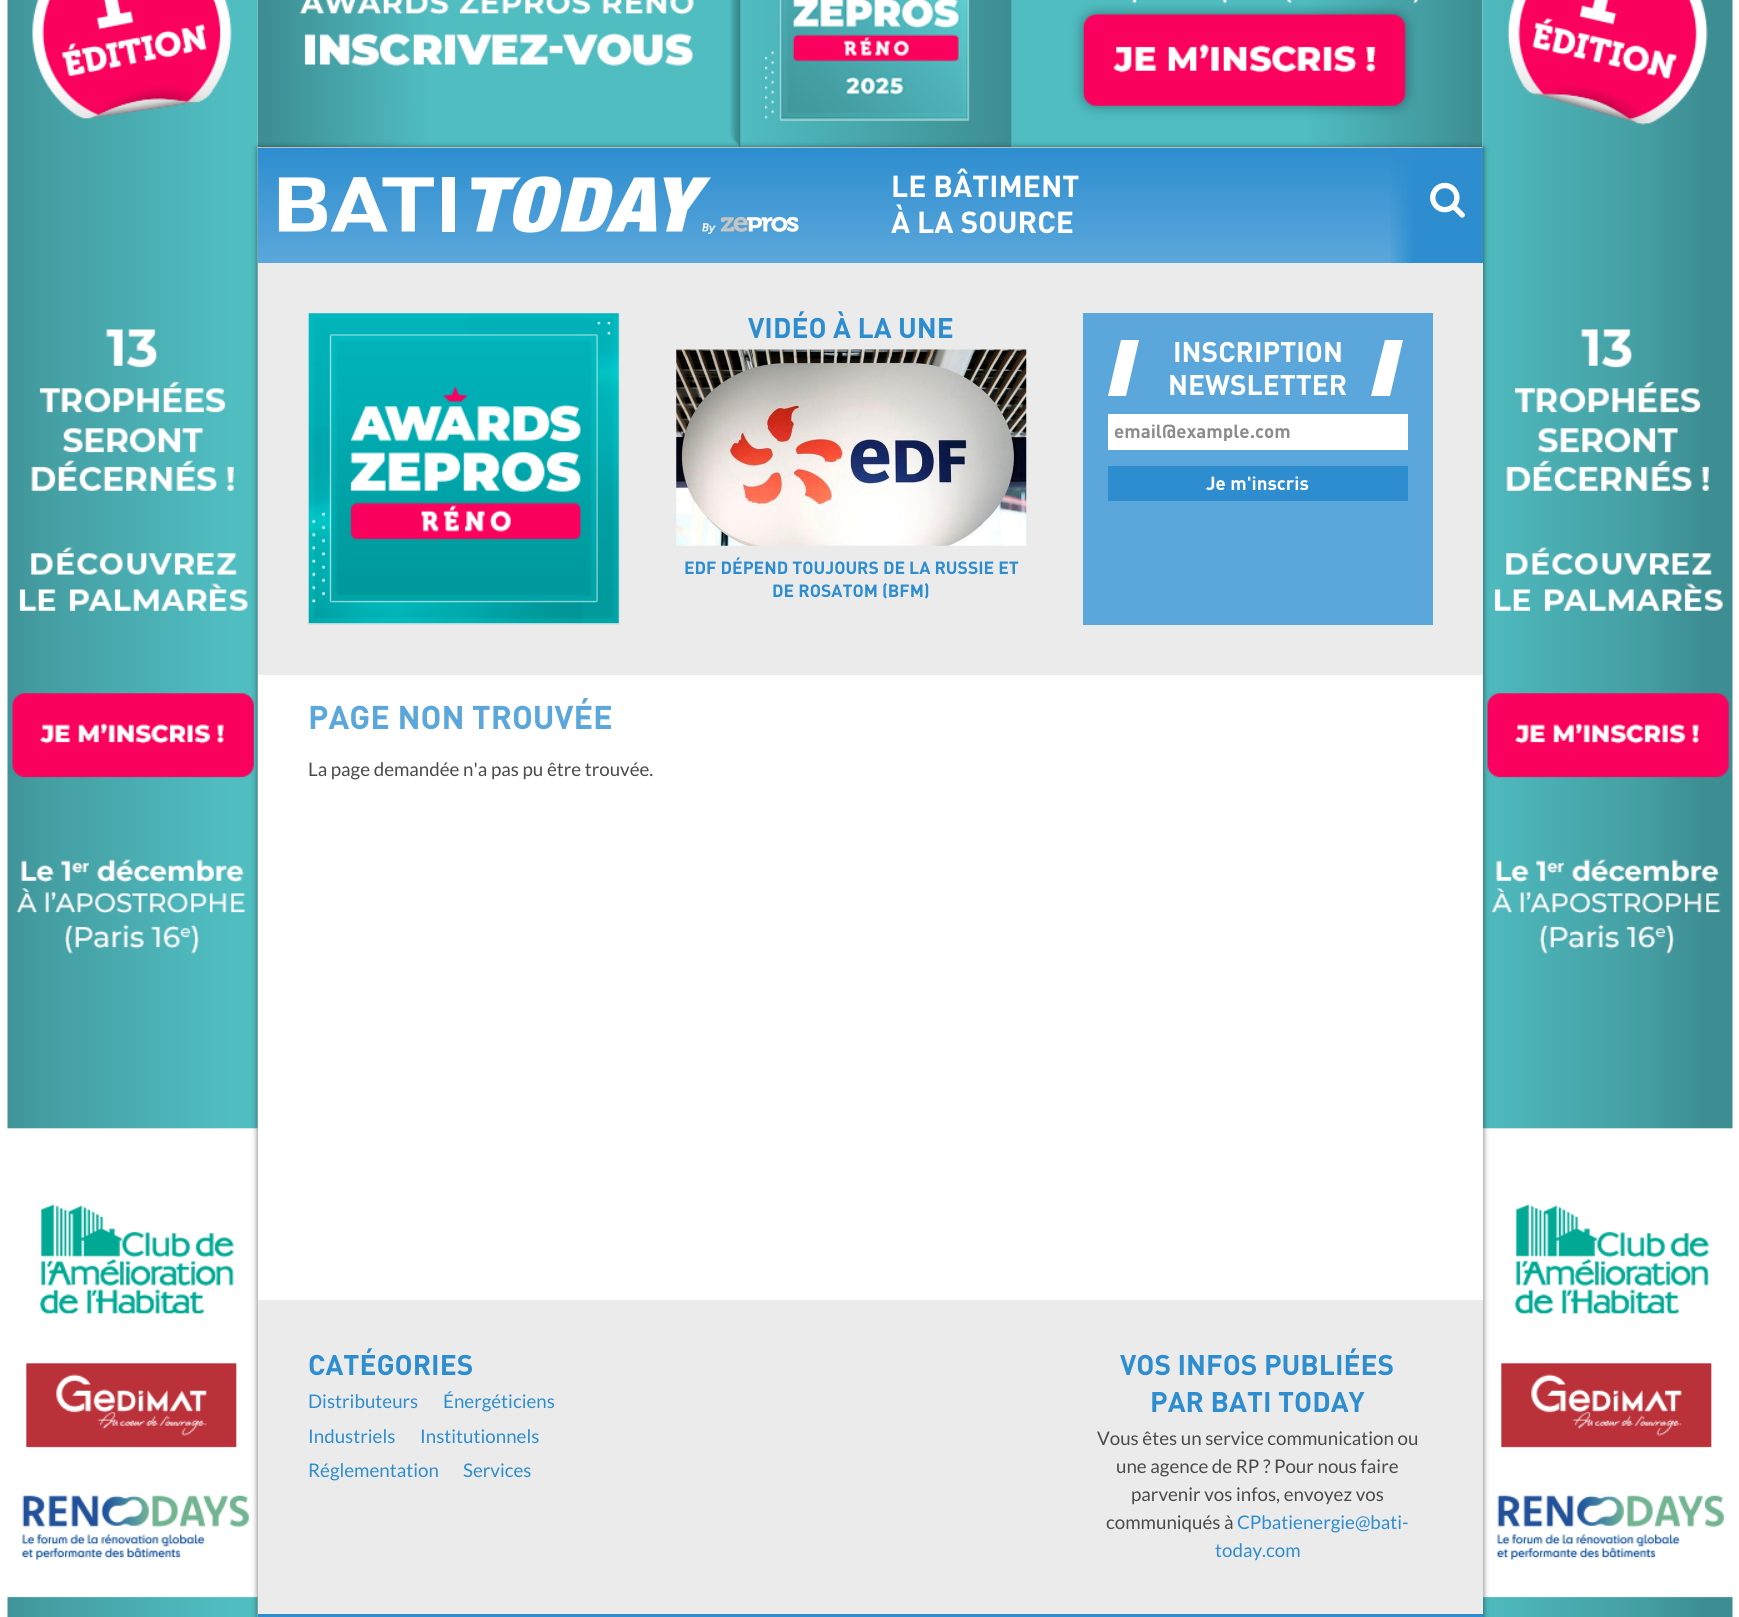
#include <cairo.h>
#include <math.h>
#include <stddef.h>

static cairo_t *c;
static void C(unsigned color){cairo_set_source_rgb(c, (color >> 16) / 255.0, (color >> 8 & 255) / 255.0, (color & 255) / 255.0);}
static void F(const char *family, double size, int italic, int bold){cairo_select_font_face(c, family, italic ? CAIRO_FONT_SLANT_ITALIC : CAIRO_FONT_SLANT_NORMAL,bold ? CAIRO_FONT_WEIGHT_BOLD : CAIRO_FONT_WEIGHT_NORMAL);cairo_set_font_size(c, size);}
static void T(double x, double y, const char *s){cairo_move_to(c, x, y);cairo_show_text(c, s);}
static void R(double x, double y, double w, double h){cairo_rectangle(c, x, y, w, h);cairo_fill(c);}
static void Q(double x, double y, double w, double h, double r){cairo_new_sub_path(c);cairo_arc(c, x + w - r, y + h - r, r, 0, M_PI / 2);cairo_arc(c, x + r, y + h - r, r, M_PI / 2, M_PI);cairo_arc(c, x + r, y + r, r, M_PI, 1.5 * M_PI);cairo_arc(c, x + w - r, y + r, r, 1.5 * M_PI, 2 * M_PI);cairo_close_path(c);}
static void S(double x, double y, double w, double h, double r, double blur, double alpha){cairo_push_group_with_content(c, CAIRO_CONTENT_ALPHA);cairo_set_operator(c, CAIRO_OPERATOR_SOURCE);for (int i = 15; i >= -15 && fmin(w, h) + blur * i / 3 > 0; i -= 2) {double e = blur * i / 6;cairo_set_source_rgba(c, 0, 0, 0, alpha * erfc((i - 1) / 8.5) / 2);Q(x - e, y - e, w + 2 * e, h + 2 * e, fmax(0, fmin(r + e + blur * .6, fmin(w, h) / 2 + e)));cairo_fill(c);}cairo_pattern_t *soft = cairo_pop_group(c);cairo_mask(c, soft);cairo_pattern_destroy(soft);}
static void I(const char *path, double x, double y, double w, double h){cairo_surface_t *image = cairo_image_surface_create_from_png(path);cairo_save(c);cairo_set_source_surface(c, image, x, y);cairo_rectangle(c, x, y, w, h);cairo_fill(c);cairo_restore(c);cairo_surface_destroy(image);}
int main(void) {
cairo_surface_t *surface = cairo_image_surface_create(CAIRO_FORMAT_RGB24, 1739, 1617);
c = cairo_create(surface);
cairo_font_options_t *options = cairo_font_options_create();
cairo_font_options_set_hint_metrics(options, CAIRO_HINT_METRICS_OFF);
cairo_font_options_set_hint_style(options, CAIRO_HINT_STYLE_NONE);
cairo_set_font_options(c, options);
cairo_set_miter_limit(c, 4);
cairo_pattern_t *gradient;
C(0xffffff);
cairo_paint(c);
I("2.png",257,0,1226,147);
I("1.png",7,0,251,1617);
I("7.png",1482,0,251,1617);
C(0x000000);
S(258,148,1225,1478,0,3,.6);
C(0xffffff);
R(258,675,1225,625);
gradient = cairo_pattern_create_linear(870,147,870,263);
cairo_pattern_add_color_stop_rgba(gradient,0,0.176,0.553,0.812,1);
cairo_pattern_add_color_stop_rgba(gradient,1,0.357,0.655,0.859,1);
cairo_set_source(c,gradient);
cairo_pattern_destroy(gradient);
R(258,148,1156,115);
I("3.png",278,176,521,58);
F("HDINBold",30,0,1);
C(0xffffff);
T(891,197,"LE BÂTIMENT");
T(891,233,"À LA SOURCE");
C(0x2d8dcf);
R(1414,148,69,115);
gradient = cairo_pattern_create_linear(1414,205,1389,205);
cairo_pattern_add_color_stop_rgba(gradient,0,0.176,0.553,0.812,1);
cairo_pattern_add_color_stop_rgba(gradient,1,0.176,0.553,0.812,0);
cairo_set_source(c,gradient);
cairo_pattern_destroy(gradient);
R(1391,153,23,110);
I("4.png",1430,182,35,36);
C(0xebebeb);
R(258,263,1225,412);
cairo_rectangle(c,308.5,313.5,311,311);
C(0xe0e0e0);
cairo_set_line_width(c,1);
cairo_stroke(c);
I("5.png",308,313,311,311);
F("HDINBold",28.1,0,1);
C(0x2d8dcf);
T(748,338,"VIDÉO À LA UNE");
I("6.png",676,349,351,197);
F("HDINBold",17.5,0,1);
T(684,574,"EDF DÉPEND TOUJOURS DE LA RUSSIE ET");
T(772,597,"DE ROSATOM (BFM)");
C(0x5ba7db);
R(1083,313,350,312);
C(0xffffff);
cairo_new_path(c);
cairo_move_to(c,1139,340);
cairo_line_to(c,1121,340);
cairo_line_to(c,1108,396);
cairo_line_to(c,1126,396);
cairo_close_path(c);
cairo_fill(c);
F("HDINBold",28.1,0,1);
T(1173,362,"INSCRIPTION");
cairo_new_path(c);
cairo_move_to(c,1403,340);
cairo_line_to(c,1385,340);
cairo_line_to(c,1371,396);
cairo_line_to(c,1390,396);
cairo_close_path(c);
cairo_fill(c);
T(1168,395,"NEWSLETTER");
R(1108,414,300,36);
cairo_save(c);
cairo_rectangle(c,1114,424,287,17);
cairo_clip(c);
F("HDINBold",18.75,0,1);
C(0x8c8c8c);
T(1114,438,"email@example.com");
cairo_restore(c);
C(0x2d8dcf);
R(1108,466,300,35);
F("HDINBold",18.75,0,1);
C(0xffffff);
T(1206,490,"Je m'inscris");
F("HDINBold",32.5,0,1);
C(0x5ba7db);
T(308,729,"PAGE NON TROUVÉE");
F("Lato",18.75,0,0);
C(0x4a4a4a);
T(308,776,"La page demandée n'a pas pu être trouvée.");
C(0xebebeb);
R(258,1300,1225,314);
F("HDINBold",28.1,0,1);
C(0x2d8dcf);
T(308,1375,"CATÉGORIES");
F("Lato",18.75,0,0);
T(308,1408,"Distributeurs");
T(443,1408,"Énergéticiens");
T(308,1443,"Industriels");
T(420,1443,"Institutionnels");
T(308,1477,"Réglementation");
T(463,1477,"Services");
F("HDINBold",28.1,0,1);
T(1120,1375,"VOS INFOS PUBLIÉES");
T(1150,1412,"PAR BATI TODAY");
F("Lato",18.75,0,0);
C(0x4a4a4a);
T(1097,1445,"Vous êtes un service communication ou");
T(1116,1473,"une agence de RP ? Pour nous faire");
T(1131,1501,"parvenir vos infos, envoyez vos");
T(1106,1529,"communiqués à");
C(0x2d8dcf);
T(1237,1529,"CPbatienergie@bati-");
T(1215,1557,"today.com");
gradient = cairo_pattern_create_linear(870,1614,870,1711);
cairo_pattern_add_color_stop_rgba(gradient,0,0.176,0.553,0.812,1);
cairo_pattern_add_color_stop_rgba(gradient,1,0.357,0.655,0.859,1);
cairo_set_source(c,gradient);
cairo_pattern_destroy(gradient);
R(258,1614,1225,3);
cairo_surface_write_to_png(surface, "o.png");
cairo_font_options_destroy(options);
cairo_destroy(c);
cairo_surface_destroy(surface);
return 0;
}
